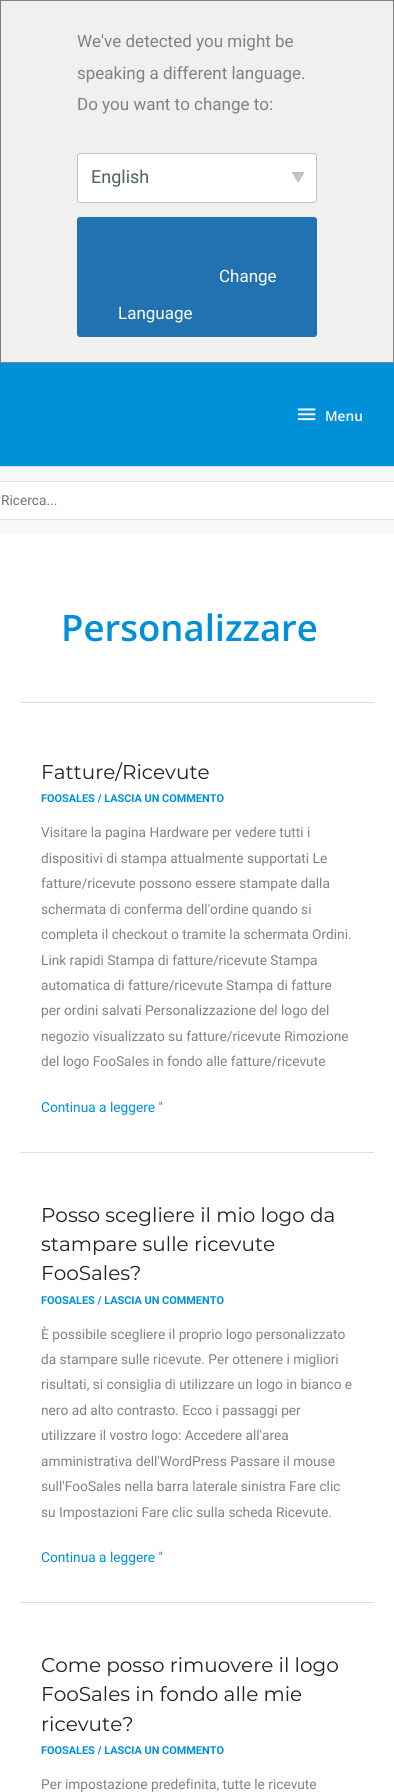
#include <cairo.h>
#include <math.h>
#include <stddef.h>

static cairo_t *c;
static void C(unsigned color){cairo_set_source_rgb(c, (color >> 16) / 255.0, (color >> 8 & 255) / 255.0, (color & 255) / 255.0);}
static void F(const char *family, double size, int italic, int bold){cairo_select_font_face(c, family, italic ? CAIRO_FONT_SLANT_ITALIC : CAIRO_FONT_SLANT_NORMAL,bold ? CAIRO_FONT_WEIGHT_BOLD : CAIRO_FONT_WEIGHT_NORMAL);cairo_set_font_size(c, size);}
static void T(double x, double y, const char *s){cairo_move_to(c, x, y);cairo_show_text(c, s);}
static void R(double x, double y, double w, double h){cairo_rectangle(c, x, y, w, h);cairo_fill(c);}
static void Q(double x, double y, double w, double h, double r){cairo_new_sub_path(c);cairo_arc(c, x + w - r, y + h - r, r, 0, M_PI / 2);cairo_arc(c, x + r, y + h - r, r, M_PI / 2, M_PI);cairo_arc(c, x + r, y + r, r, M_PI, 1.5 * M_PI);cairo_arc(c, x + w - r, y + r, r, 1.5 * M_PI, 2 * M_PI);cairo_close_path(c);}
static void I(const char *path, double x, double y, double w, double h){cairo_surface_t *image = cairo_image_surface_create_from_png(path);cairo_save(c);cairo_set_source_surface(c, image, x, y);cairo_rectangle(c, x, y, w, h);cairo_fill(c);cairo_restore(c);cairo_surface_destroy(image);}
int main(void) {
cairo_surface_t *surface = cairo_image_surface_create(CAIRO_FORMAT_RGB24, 394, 1792);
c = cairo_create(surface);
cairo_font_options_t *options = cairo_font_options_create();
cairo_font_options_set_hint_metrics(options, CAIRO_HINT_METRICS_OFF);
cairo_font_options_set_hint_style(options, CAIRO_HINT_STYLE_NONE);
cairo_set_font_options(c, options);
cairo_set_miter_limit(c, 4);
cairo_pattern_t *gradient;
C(0xffffff);
cairo_paint(c);
C(0xf0f0ee);
cairo_rectangle(c,.5,.5,393,362);
cairo_fill_preserve(c);
C(0x808080);
cairo_set_line_width(c,1);
cairo_stroke(c);
F("Roboto",17,0,0);
C(0x808285);
T(77,47,"We've detected you might be");
T(77,79,"speaking a different language.");
T(77,110,"Do you want to change to:");
C(0xffffff);
Q(77,153,240,50,3);
cairo_fill(c);
gradient = cairo_pattern_create_linear(296,175,306,181);
cairo_pattern_add_color_stop_rgba(gradient,.5,0.788,0.753,0.733,1);
cairo_pattern_add_color_stop_rgba(gradient,.5,1,1,1,1);
cairo_set_source(c,gradient);
cairo_pattern_destroy(gradient);
R(298,172,6,12);
gradient = cairo_pattern_create_linear(290,181,300,175);
cairo_pattern_add_color_stop_rgba(gradient,.5,1,1,1,1);
cairo_pattern_add_color_stop_rgba(gradient,.5,0.788,0.753,0.733,1);
cairo_set_source(c,gradient);
cairo_pattern_destroy(gradient);
R(292,172,6,12);
Q(77.5,153.5,239,49,2.5);
C(0xc1c1c1);
cairo_stroke(c);
F("Roboto",18,0,0);
C(0x4c6066);
T(91,183,"English");
C(0x2271b1);
Q(77.5,217.5,239,119,2.5);
cairo_fill_preserve(c);
cairo_stroke(c);
F("Roboto",17,0,0);
C(0xffffff);
T(219,282,"Change");
T(118,319,"Language");
C(0x0090da);
R(0,363,394,103);
I("1.png",297,408,19,13);
F("Open Sans SemiBold",13.7,0,0);
C(0xffffff);
T(325,421,"Menu");
C(0xf9f9f9);
R(0,467,394,68);
C(0xdddddd);
R(0,466,394,1);
C(0xffffff);
cairo_rectangle(c,-.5,481.5,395,38);
cairo_fill_preserve(c);
C(0xdddddd);
cairo_stroke(c);
F("Roboto",13.7,0,0);
C(0x757575);
T(1,505,"Ricerca...");
C(0xdddddd);
R(20,702,354,1);
F("Open Sans SemiBold",36.5,0,0);
C(0x0090da);
T(61,641,"Personalizzare");
C(0xdddddd);
R(20,1152,354,1);
F("Montserrat Thin",20,0,0);
C(0x222222);
T(41,779,"Fatture/Ricevute");
F("Roboto",10.9,0,1);
C(0x0090da);
T(41,802,"FOOSALES / LASCIA UN COMMENTO");
F("Roboto",13.7,0,0);
C(0x808285);
T(41,837,"Visitare la pagina Hardware per vedere tutti i");
T(41,863,"dispositivi di stampa attualmente supportati Le");
T(41,888,"fatture/ricevute possono essere stampate dalla");
T(41,914,"schermata di conferma dell'ordine quando si");
T(41,939,"completa il checkout o tramite la schermata Ordini.");
T(41,965,"Link rapidi Stampa di fatture/ricevute Stampa");
T(41,990,"automatica di fatture/ricevute Stampa di fatture");
T(41,1015,"per ordini salvati Personalizzazione del logo del");
T(41,1041,"negozio visualizzato su fatture/ricevute Rimozione");
T(41,1066,"del logo FooSales in fondo alle fatture/ricevute");
C(0x0090da);
T(41,1112,"Continua a leggere \"");
C(0xdddddd);
R(20,1602,354,1);
F("Montserrat Thin",20,0,0);
C(0x222222);
T(41,1222,"Posso scegliere il mio logo da");
T(41,1251,"stampare sulle ricevute");
T(41,1280,"FooSales?");
F("Roboto",10.9,0,1);
C(0x0090da);
T(41,1304,"FOOSALES / LASCIA UN COMMENTO");
F("Roboto",13.7,0,0);
C(0x808285);
T(41,1339,"È possibile scegliere il proprio logo personalizzato");
T(41,1364,"da stampare sulle ricevute. Per ottenere i migliori");
T(41,1389,"risultati, si consiglia di utilizzare un logo in bianco e");
T(41,1415,"nero ad alto contrasto. Ecco i passaggi per");
T(41,1440,"utilizzare il vostro logo: Accedere all'area");
T(41,1466,"amministrativa dell'WordPress Passare il mouse");
T(41,1491,"sull'FooSales nella barra laterale sinistra Fare clic");
T(41,1517,"su Impostazioni Fare clic sulla scheda Ricevute.");
C(0x0090da);
T(41,1562,"Continua a leggere \"");
F("Montserrat Thin",20,0,0);
C(0x222222);
T(41,1672,"Come posso rimuovere il logo");
T(41,1701,"FooSales in fondo alle mie");
T(41,1731,"ricevute?");
F("Roboto",10.9,0,1);
C(0x0090da);
T(41,1754,"FOOSALES / LASCIA UN COMMENTO");
F("Roboto",13.7,0,0);
C(0x808285);
T(41,1789,"Per impostazione predefinita, tutte le ricevute");
cairo_surface_write_to_png(surface, "o.png");
cairo_font_options_destroy(options);
cairo_destroy(c);
cairo_surface_destroy(surface);
return 0;
}
